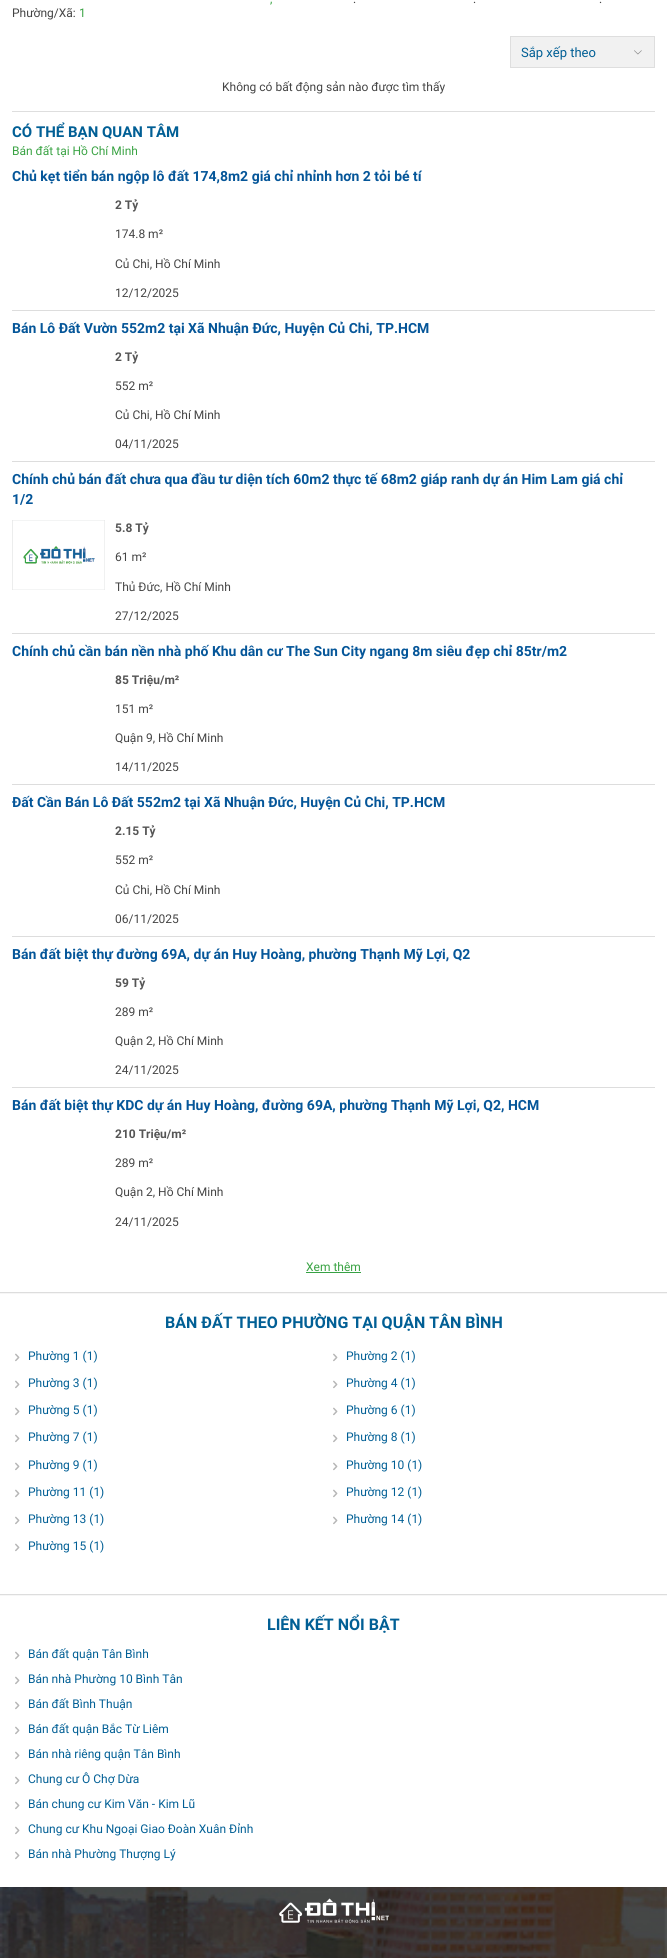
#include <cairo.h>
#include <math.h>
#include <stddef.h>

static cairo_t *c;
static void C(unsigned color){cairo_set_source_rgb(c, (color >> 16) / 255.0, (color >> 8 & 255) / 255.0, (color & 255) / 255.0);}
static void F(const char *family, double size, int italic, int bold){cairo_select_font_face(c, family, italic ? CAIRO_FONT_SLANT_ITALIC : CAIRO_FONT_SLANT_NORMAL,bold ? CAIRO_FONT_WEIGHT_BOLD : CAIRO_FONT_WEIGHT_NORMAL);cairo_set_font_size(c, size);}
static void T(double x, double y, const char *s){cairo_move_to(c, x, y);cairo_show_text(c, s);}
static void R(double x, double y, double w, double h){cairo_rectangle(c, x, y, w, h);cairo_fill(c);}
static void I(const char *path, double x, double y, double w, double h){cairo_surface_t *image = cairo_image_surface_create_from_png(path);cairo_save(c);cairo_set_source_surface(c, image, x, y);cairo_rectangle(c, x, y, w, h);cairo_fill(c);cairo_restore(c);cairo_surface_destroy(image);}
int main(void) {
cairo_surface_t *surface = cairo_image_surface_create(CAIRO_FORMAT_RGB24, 667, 1958);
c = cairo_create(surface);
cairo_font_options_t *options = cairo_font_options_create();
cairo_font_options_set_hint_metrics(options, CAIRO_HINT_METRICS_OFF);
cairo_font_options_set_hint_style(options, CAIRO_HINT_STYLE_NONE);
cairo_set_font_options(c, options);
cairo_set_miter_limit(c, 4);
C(0xffffff);
cairo_paint(c);
F("Roboto",12,0,0);
C(0x3aa344);
T(270,3,",");
C(0x444444);
T(353,3,".");
T(473,3,".");
T(599,3,".");
T(12,17,"Phường/Xã:");
C(0x3aa344);
T(79,17,"1");
C(0xf1f1f1);
cairo_rectangle(c,510.5,36.5,144,31);
cairo_fill_preserve(c);
C(0xdedede);
cairo_set_line_width(c,1);
cairo_stroke(c);
F("Roboto",13,0,0);
C(0x015f95);
T(521,57,"Sắp xếp theo");
I("1.png",634,50,8,5);
F("Roboto",12,0,0);
C(0x444444);
T(222,91,"Không có bất động sản nào được tìm thấy");
C(0xdedede);
R(12,111,643,1);
F("Roboto",15,0,1);
C(0x015f95);
T(12,137,"CÓ THỂ BẠN QUAN TÂM");
F("Roboto",12,0,0);
C(0x3aa344);
T(12,155,"Bán đất tại Hồ Chí Minh");
C(0xdddddd);
R(12,310,643,1);
F("Roboto",14,0,1);
C(0x055699);
T(12,181,"Chủ kẹt tiển bán ngộp lô đất 174,8m2 giá chỉ nhỉnh hơn 2 tỏi bé tí");
F("Roboto",12,0,1);
C(0x555555);
T(115,209,"2 Tỷ");
F("Roboto",12,0,0);
C(0x444444);
T(115,238,"174.8 m²");
T(115,268,"Củ Chi, Hồ Chí Minh");
T(115,297,"12/12/2025");
C(0xdddddd);
R(12,461,643,1);
F("Roboto",14,0,1);
C(0x055699);
T(12,333,"Bán Lô Đất Vườn 552m2 tại Xã Nhuận Đức, Huyện Củ Chi, TP.HCM");
F("Roboto",12,0,1);
C(0x555555);
T(115,361,"2 Tỷ");
F("Roboto",12,0,0);
C(0x444444);
T(115,390,"552 m²");
T(115,419,"Củ Chi, Hồ Chí Minh");
T(115,448,"04/11/2025");
C(0xdddddd);
R(12,633,643,1);
F("Roboto",14,0,1);
C(0x055699);
T(12,484,"Chính chủ bán đất chưa qua đầu tư diện tích 60m2 thực tế 68m2 giáp ranh dự án Him Lam giá chỉ");
T(12,504,"1/2");
I("2.png",12,520,93,70);
F("Roboto",12,0,1);
C(0x555555);
T(115,532,"5.8 Tỷ");
F("Roboto",12,0,0);
C(0x444444);
T(115,561,"61 m²");
T(115,591,"Thủ Đức, Hồ Chí Minh");
T(115,620,"27/12/2025");
C(0xdddddd);
R(12,784,643,1);
F("Roboto",14,0,1);
C(0x055699);
T(12,656,"Chính chủ cần bán nền nhà phố Khu dân cư The Sun City ngang 8m siêu đẹp chỉ 85tr/m2");
F("Roboto",12,0,1);
C(0x555555);
T(115,684,"85 Triệu/m²");
F("Roboto",12,0,0);
C(0x444444);
T(115,713,"151 m²");
T(115,742,"Quận 9, Hồ Chí Minh");
T(115,771,"14/11/2025");
C(0xdddddd);
R(12,936,643,1);
F("Roboto",14,0,1);
C(0x055699);
T(12,807,"Đất Cần Bán Lô Đất 552m2 tại Xã Nhuận Đức, Huyện Củ Chi, TP.HCM");
F("Roboto",12,0,1);
C(0x555555);
T(115,835,"2.15 Tỷ");
F("Roboto",12,0,0);
C(0x444444);
T(115,864,"552 m²");
T(115,894,"Củ Chi, Hồ Chí Minh");
T(115,923,"06/11/2025");
C(0xdddddd);
R(12,1087,643,1);
F("Roboto",14,0,1);
C(0x055699);
T(12,959,"Bán đất biệt thự đường 69A, dự án Huy Hoàng, phường Thạnh Mỹ Lợi, Q2");
F("Roboto",12,0,1);
C(0x555555);
T(115,987,"59 Tỷ");
F("Roboto",12,0,0);
C(0x444444);
T(115,1016,"289 m²");
T(115,1045,"Quận 2, Hồ Chí Minh");
T(115,1074,"24/11/2025");
F("Roboto",14,0,1);
C(0x055699);
T(12,1110,"Bán đất biệt thự KDC dự án Huy Hoàng, đường 69A, phường Thạnh Mỹ Lợi, Q2, HCM");
F("Roboto",12,0,1);
C(0x555555);
T(115,1138,"210 Triệu/m²");
F("Roboto",12,0,0);
C(0x444444);
T(115,1167,"289 m²");
T(115,1196,"Quận 2, Hồ Chí Minh");
T(115,1226,"24/11/2025");
C(0x3aa344);
T(306,1271,"Xem thêm");
C(0x37a244);
R(306,1272,55,1);
C(0xdddddd);
R(0,1292,667,1);
C(0xf6f6f6);
R(0,1293,667,1);
F("Roboto",16,0,1);
C(0x015f95);
T(165,1328,"BÁN ĐẤT THEO PHƯỜNG TẠI QUẬN TÂN BÌNH");
I("3.png",15,1353,5,9);
F("Roboto",12,0,0);
T(28,1360,"Phường 1 (1)");
I("3.png",333,1353,5,9);
T(346,1360,"Phường 2 (1)");
I("3.png",15,1380,5,9);
T(28,1387,"Phường 3 (1)");
I("3.png",333,1380,5,9);
T(346,1387,"Phường 4 (1)");
I("3.png",15,1407,5,9);
T(28,1414,"Phường 5 (1)");
I("3.png",333,1407,5,9);
T(346,1414,"Phường 6 (1)");
I("3.png",15,1434,5,9);
T(28,1441,"Phường 7 (1)");
I("3.png",333,1434,5,9);
T(346,1441,"Phường 8 (1)");
I("3.png",15,1462,5,9);
T(28,1469,"Phường 9 (1)");
I("3.png",333,1462,5,9);
T(346,1469,"Phường 10 (1)");
I("3.png",15,1489,5,9);
T(28,1496,"Phường 11 (1)");
I("3.png",333,1489,5,9);
T(346,1496,"Phường 12 (1)");
I("3.png",15,1516,5,9);
T(28,1523,"Phường 13 (1)");
I("3.png",333,1516,5,9);
T(346,1523,"Phường 14 (1)");
I("3.png",15,1543,5,9);
T(28,1550,"Phường 15 (1)");
C(0xdddddd);
R(0,1594,667,1);
C(0xf6f6f6);
R(0,1595,667,1);
F("Roboto",16,0,1);
C(0x015f95);
T(267,1630,"LIÊN KẾT NỔI BẬT");
I("3.png",15,1651,5,9);
F("Roboto",12,0,0);
T(28,1658,"Bán đất quận Tân Bình");
I("3.png",15,1676,5,9);
T(28,1683,"Bán nhà Phường 10 Bình Tân");
I("3.png",15,1701,5,9);
T(28,1708,"Bán đất Bình Thuận");
I("3.png",15,1726,5,9);
T(28,1733,"Bán đất quận Bắc Từ Liêm");
I("3.png",15,1751,5,9);
T(28,1758,"Bán nhà riêng quận Tân Bình");
I("3.png",15,1776,5,9);
T(28,1783,"Chung cư Ô Chợ Dừa");
I("3.png",15,1801,5,9);
T(28,1808,"Bán chung cư Kim Văn - Kim Lũ");
I("3.png",15,1826,5,9);
T(28,1833,"Chung cư Khu Ngoại Giao Đoàn Xuân Đỉnh");
I("3.png",15,1851,5,9);
T(28,1858,"Bán nhà Phường Thượng Lý");
I("4.png",0,1887,667,71);
I("5.png",279,1898,110,26);
cairo_surface_write_to_png(surface, "o.png");
cairo_font_options_destroy(options);
cairo_destroy(c);
cairo_surface_destroy(surface);
return 0;
}
